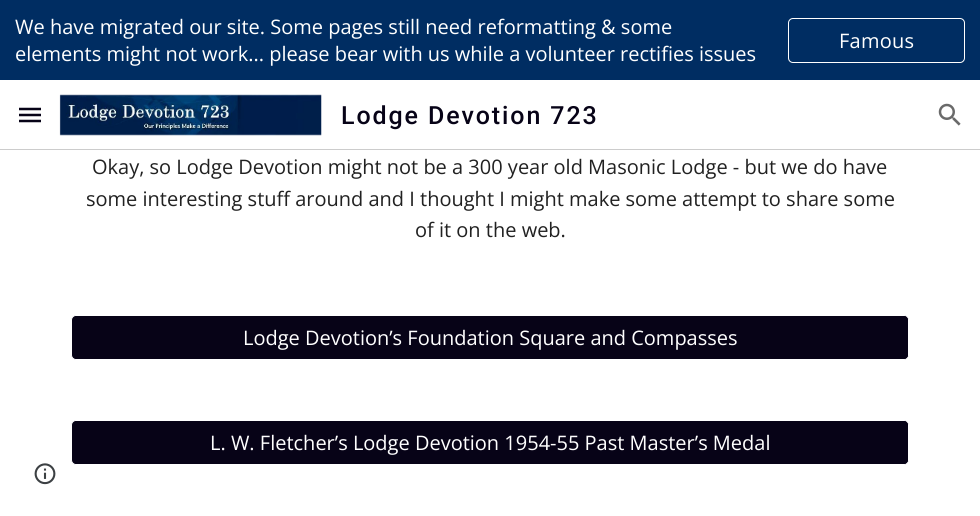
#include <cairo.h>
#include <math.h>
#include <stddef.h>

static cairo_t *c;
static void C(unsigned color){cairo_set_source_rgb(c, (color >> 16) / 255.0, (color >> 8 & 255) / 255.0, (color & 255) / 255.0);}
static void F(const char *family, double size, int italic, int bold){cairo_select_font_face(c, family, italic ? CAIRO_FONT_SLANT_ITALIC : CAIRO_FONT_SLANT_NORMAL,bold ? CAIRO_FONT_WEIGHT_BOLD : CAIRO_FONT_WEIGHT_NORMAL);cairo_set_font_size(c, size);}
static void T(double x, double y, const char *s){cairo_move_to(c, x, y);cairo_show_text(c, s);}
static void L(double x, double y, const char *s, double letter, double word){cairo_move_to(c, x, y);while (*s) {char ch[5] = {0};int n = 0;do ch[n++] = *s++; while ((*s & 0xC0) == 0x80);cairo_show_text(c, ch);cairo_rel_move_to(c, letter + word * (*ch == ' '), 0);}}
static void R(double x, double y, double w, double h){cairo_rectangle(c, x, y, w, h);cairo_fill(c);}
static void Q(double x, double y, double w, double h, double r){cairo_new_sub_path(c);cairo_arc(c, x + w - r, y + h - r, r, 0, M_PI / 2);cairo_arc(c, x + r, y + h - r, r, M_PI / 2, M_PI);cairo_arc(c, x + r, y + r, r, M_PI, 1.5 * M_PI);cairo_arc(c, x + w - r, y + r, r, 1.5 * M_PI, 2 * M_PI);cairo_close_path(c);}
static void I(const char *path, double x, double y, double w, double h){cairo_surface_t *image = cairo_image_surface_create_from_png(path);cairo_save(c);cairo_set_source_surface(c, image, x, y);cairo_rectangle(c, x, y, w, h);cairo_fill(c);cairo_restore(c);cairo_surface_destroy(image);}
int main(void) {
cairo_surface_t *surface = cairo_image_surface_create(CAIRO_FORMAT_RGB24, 980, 516);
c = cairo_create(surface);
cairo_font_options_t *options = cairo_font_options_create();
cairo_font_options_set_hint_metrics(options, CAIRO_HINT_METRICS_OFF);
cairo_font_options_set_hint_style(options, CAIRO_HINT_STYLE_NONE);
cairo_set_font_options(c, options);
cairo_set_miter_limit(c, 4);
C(0xffffff);
cairo_paint(c);
C(0x002d62);
R(0,0,980,80);
F("Open Sans",20,0,0);
C(0xffffff);
T(15,34,"We have migrated our site. Some pages still need reformatting & some");
T(15,61,"elements might not work... please bear with us while a volunteer rectifies issues");
Q(788.5,18.5,176,44,4.5);
cairo_set_line_width(c,1);
cairo_stroke(c);
L(839,48,"Famous",.25,0);
cairo_new_path(c);
cairo_move_to(c,19,109);
cairo_line_to(c,41,109);
cairo_move_to(c,19,115);
cairo_line_to(c,41,115);
cairo_move_to(c,19,121);
cairo_line_to(c,41,121);
C(0x070317);
cairo_set_line_width(c,2.5);
cairo_stroke(c);
I("1.png",59,94,263,42);
F("Roboto Medium",25,0,0);
L(341,124,"Lodge Devotion 723",1.9,0);
C(0xcccccc);
R(0,149,980,1);
I("2.png",938,103,23,23);
F("Open Sans",20,0,0);
C(0x212121);
T(92,174,"Okay, so Lodge Devotion might not be a 300 year old Masonic Lodge - but we do have");
T(86,206,"some interesting stuff around and I thought I might make some attempt to share some");
T(415,237,"of it on the web.");
C(0x070317);
Q(71.5,315.5,837,44,4.5);
cairo_fill_preserve(c);
C(0xffffff);
cairo_set_line_width(c,1);
cairo_stroke(c);
C(0x070317);
Q(73,316,835,43,4);
cairo_fill(c);
C(0xffffff);
T(243,345,"Lodge Devotion’s Foundation Square and Compasses");
C(0x070317);
Q(71.5,420.5,837,44,4.5);
cairo_fill_preserve(c);
C(0xffffff);
cairo_stroke(c);
C(0x070317);
Q(73,421,835,43,4);
cairo_fill(c);
C(0xffffff);
T(210,450,"L. W. Fletcher’s Lodge Devotion 1954-55 Past Master’s Medal");
I("3.png",34,463,22,22);
cairo_surface_write_to_png(surface, "o.png");
cairo_font_options_destroy(options);
cairo_destroy(c);
cairo_surface_destroy(surface);
return 0;
}
